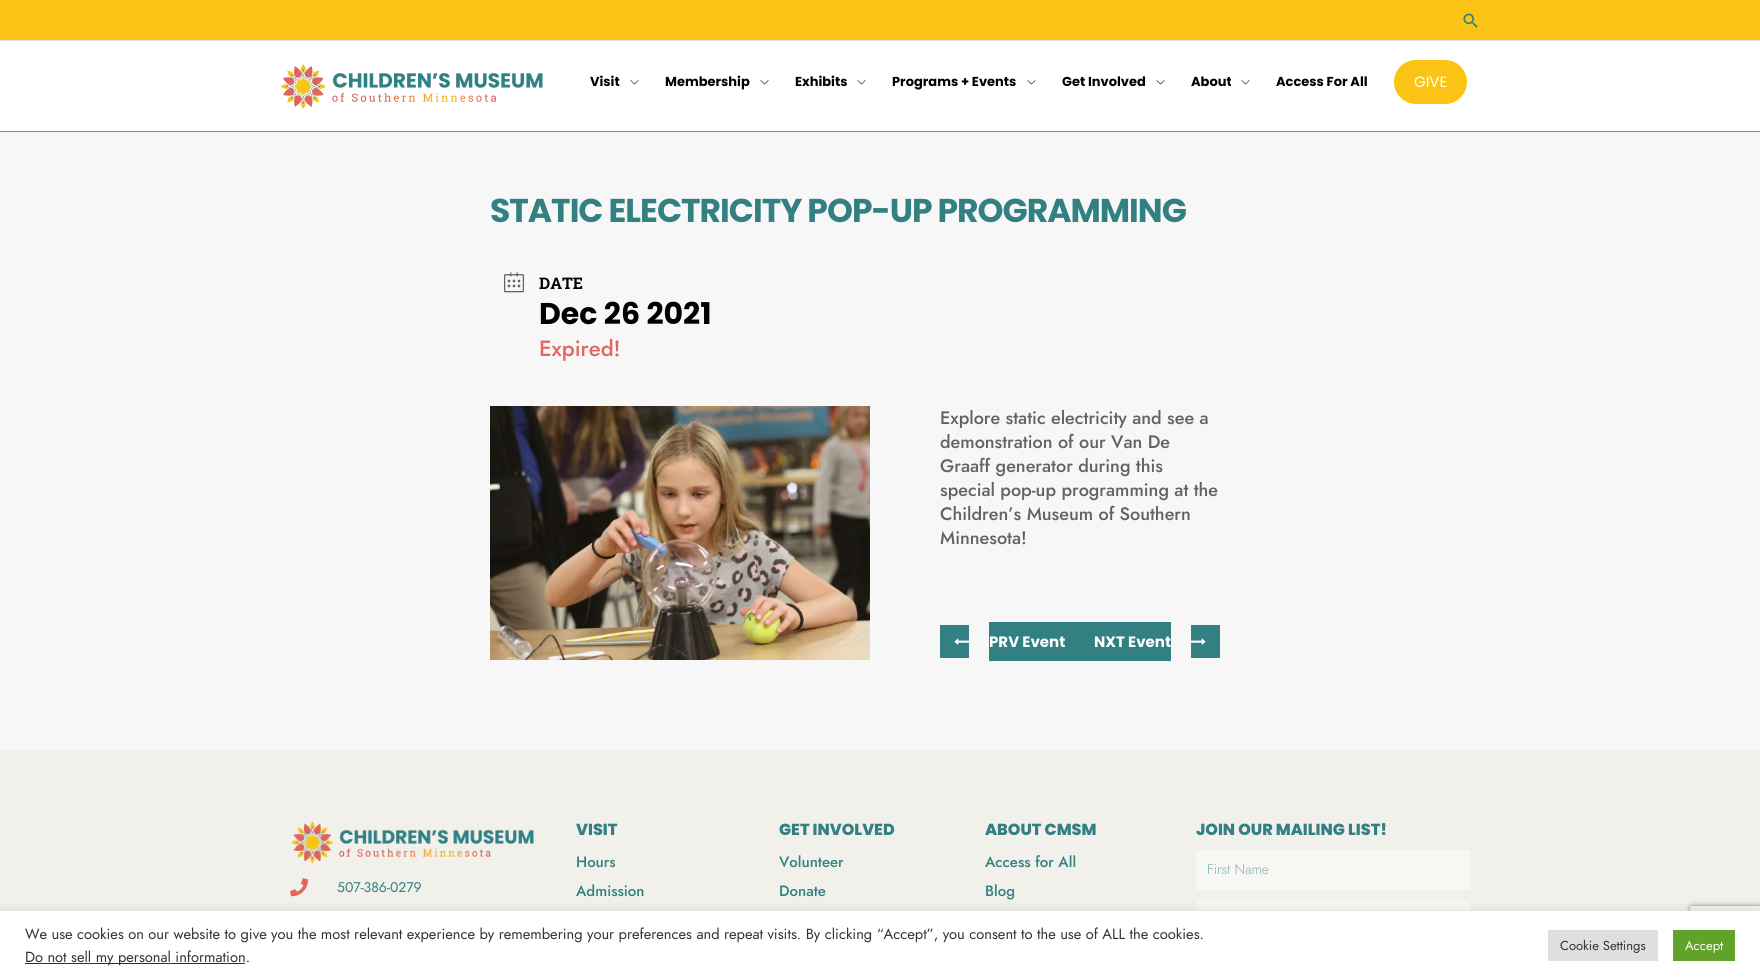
#include <cairo.h>
#include <math.h>
#include <stddef.h>

static cairo_t *c;
static void C(unsigned color){cairo_set_source_rgb(c, (color >> 16) / 255.0, (color >> 8 & 255) / 255.0, (color & 255) / 255.0);}
static void F(const char *family, double size, int italic, int bold){cairo_select_font_face(c, family, italic ? CAIRO_FONT_SLANT_ITALIC : CAIRO_FONT_SLANT_NORMAL,bold ? CAIRO_FONT_WEIGHT_BOLD : CAIRO_FONT_WEIGHT_NORMAL);cairo_set_font_size(c, size);}
static void T(double x, double y, const char *s){cairo_move_to(c, x, y);cairo_show_text(c, s);}
static void L(double x, double y, const char *s, double letter, double word){cairo_move_to(c, x, y);while (*s) {char ch[5] = {0};int n = 0;do ch[n++] = *s++; while ((*s & 0xC0) == 0x80);cairo_show_text(c, ch);cairo_rel_move_to(c, letter + word * (*ch == ' '), 0);}}
static void R(double x, double y, double w, double h){cairo_rectangle(c, x, y, w, h);cairo_fill(c);}
static void Q(double x, double y, double w, double h, double r){cairo_new_sub_path(c);cairo_arc(c, x + w - r, y + h - r, r, 0, M_PI / 2);cairo_arc(c, x + r, y + h - r, r, M_PI / 2, M_PI);cairo_arc(c, x + r, y + r, r, M_PI, 1.5 * M_PI);cairo_arc(c, x + w - r, y + r, r, 1.5 * M_PI, 2 * M_PI);cairo_close_path(c);}
static void S(double x, double y, double w, double h, double r, double blur, double alpha){cairo_push_group_with_content(c, CAIRO_CONTENT_ALPHA);cairo_set_operator(c, CAIRO_OPERATOR_SOURCE);for (int i = 15; i >= -15 && fmin(w, h) + blur * i / 3 > 0; i -= 2) {double e = blur * i / 6;cairo_set_source_rgba(c, 0, 0, 0, alpha * erfc((i - 1) / 8.5) / 2);Q(x - e, y - e, w + 2 * e, h + 2 * e, fmax(0, fmin(r + e + blur * .6, fmin(w, h) / 2 + e)));cairo_fill(c);}cairo_pattern_t *soft = cairo_pop_group(c);cairo_mask(c, soft);cairo_pattern_destroy(soft);}
static void I(const char *path, double x, double y, double w, double h){cairo_surface_t *image = cairo_image_surface_create_from_png(path);cairo_save(c);cairo_set_source_surface(c, image, x, y);cairo_rectangle(c, x, y, w, h);cairo_fill(c);cairo_restore(c);cairo_surface_destroy(image);}
int main(void) {
cairo_surface_t *surface = cairo_image_surface_create(CAIRO_FORMAT_RGB24, 1760, 980);
c = cairo_create(surface);
cairo_font_options_t *options = cairo_font_options_create();
cairo_font_options_set_hint_metrics(options, CAIRO_HINT_METRICS_OFF);
cairo_font_options_set_hint_style(options, CAIRO_HINT_STYLE_NONE);
cairo_set_font_options(c, options);
cairo_set_miter_limit(c, 4);
C(0xf7f7f7);
cairo_paint(c);
C(0xfbc415);
R(0,0,1760,40);
C(0xdddddd);
R(0,40,1760,1);
I("1.png",1463,13,15,15);
C(0xffffff);
R(0,41,1760,90);
C(0xe3655b);
R(0,131,1760,1);
I("2.png",280,64,263,45);
F("Poppins",13,0,1);
C(0x000000);
T(590,86,"Visit");
I("3.png",630,80,9,5);
T(665,86,"Membership");
I("3.png",760,80,9,5);
T(795,86,"Exhibits");
I("3.png",857,80,9,5);
T(892,86,"Programs + Events");
I("3.png",1027,80,9,5);
T(1062,86,"Get Involved");
I("3.png",1156,80,9,5);
T(1191,86,"About");
I("3.png",1241,80,9,5);
T(1276,86,"Access For All");
C(0xfbc415);
Q(1394,60,73,44,22);
cairo_fill(c);
F("Poppins",15,0,0);
C(0xffffff);
T(1414,87,"GIVE");
F("Poppins",33,0,1);
C(0x328082);
L(490,222,"STATIC ELECTRICITY POP-UP PROGRAMMING",-1,0);
I("4.png",504,272,20,21);
F("Roboto Slab",16,0,1);
C(0x000000);
T(539,289,"DATE");
F("Poppins",30,0,1);
T(539,324,"Dec 26 2021");
F("Jost Medium",22,0,0);
C(0xe3655b);
T(539,356,"Expired!");
I("5.png",490,406,380,254);
F("Jost Medium",18,0,0);
C(0x626262);
T(940,424,"Explore static electricity and see a");
T(940,448,"demonstration of our Van De");
T(940,472,"Graaff generator during this");
T(940,496,"special pop-up programming at the");
T(940,520,"Children’s Museum of Southern");
T(940,544,"Minnesota!");
C(0x328082);
R(940,625,29,33);
I("6.png",954,638,15,7);
R(989,622,182,39);
F("Poppins",15,0,1);
C(0xffffff);
T(989,647,"PRV Event");
T(1094,647,"NXT Event");
C(0x328082);
R(1191,625,29,33);
I("7.png",1191,638,15,7);
C(0xf2f0ea);
R(0,750,1760,161);
F("Poppins ExtraBold",16,0,0);
C(0x328082);
T(576,835,"VISIT");
F("Jost Medium",15,0,0);
T(576,867,"Hours");
T(576,896,"Admission");
F("Poppins ExtraBold",16,0,0);
T(779,835,"GET INVOLVED");
F("Jost Medium",15,0,0);
T(779,867,"Volunteer");
T(779,896,"Donate");
F("Poppins ExtraBold",16,0,0);
T(985,835,"ABOUT CMSM");
F("Jost Medium",15,0,0);
T(985,867,"Access for All");
T(985,896,"Blog");
F("Poppins ExtraBold",16,0,0);
T(1196,835,"JOIN OUR MAILING LIST!");
C(0xf8f7f4);
R(1196,850,274,40);
F("Jost Light",14,0,0);
C(0x81b0b0);
T(1207,874,"First Name");
C(0xf8f7f4);
R(1196,901,274,10);
cairo_save(c);
cairo_set_fill_rule(c,CAIRO_FILL_RULE_EVEN_ODD);
cairo_new_path(c);
cairo_move_to(c,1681,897);
cairo_line_to(c,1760,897);
cairo_line_to(c,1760,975);
cairo_line_to(c,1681,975);
cairo_close_path(c);
cairo_move_to(c,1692,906);
cairo_line_to(c,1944,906);
cairo_curve_to(c,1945,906,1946,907,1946,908);
cairo_line_to(c,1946,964);
cairo_curve_to(c,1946,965,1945,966,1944,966);
cairo_line_to(c,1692,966);
cairo_curve_to(c,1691,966,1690,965,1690,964);
cairo_line_to(c,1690,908);
cairo_curve_to(c,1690,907,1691,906,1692,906);
cairo_close_path(c);
cairo_clip(c);
C(0x808080);
S(1690,906,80,60,2,2.5,1);
cairo_restore(c);
I("8.png",291,821,243,43);
I("9.png",290,878,18,19);
F("Jost",14,0,0);
C(0x328082);
T(337,892,"507-386-0279");
C(0xacabab);
S(0,910,1760,69,0,5,.3);
C(0xffffff);
R(0,911,1760,69);
F("Jost",14.67,0,0);
C(0x333333);
T(25,939,"We use cookies on our website to give you the most relevant experience by remembering your preferences and repeat visits. By clicking “Accept”, you consent to the use of ALL the cookies.");
R(25,963,220,1);
T(25,962,"Do not sell my personal information.");
C(0xdedfe0);
R(1548,930,110,31);
F("Jost",13,0,0);
C(0x333333);
T(1560,950,"Cookie Settings");
C(0x61a229);
R(1673,930,62,31);
C(0xffffff);
T(1685,950,"Accept");
cairo_surface_write_to_png(surface, "o.png");
cairo_font_options_destroy(options);
cairo_destroy(c);
cairo_surface_destroy(surface);
return 0;
}
